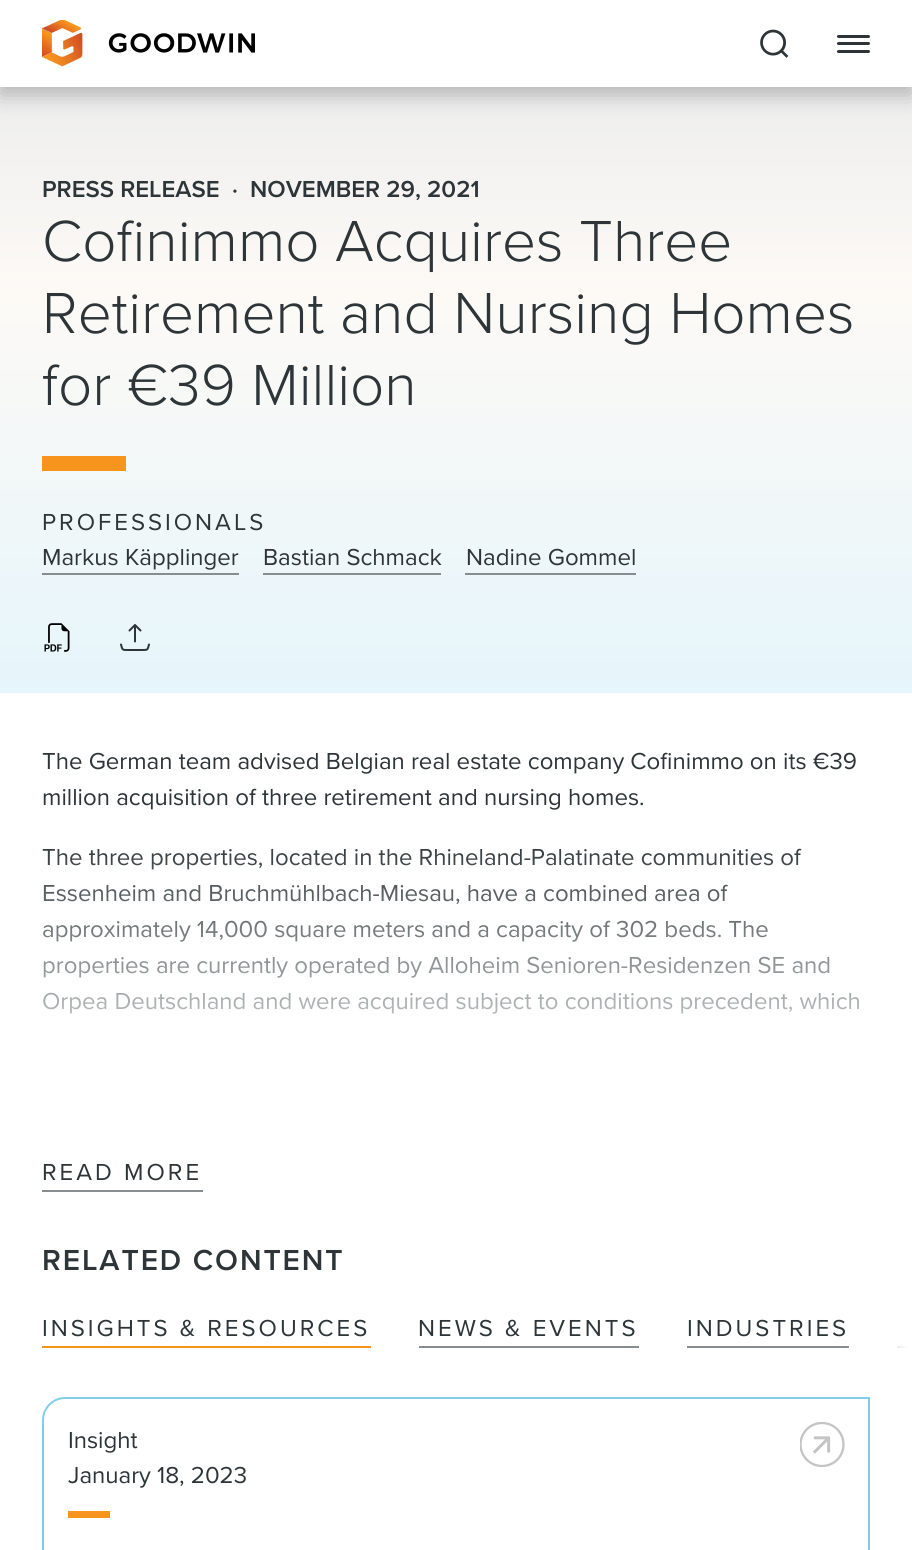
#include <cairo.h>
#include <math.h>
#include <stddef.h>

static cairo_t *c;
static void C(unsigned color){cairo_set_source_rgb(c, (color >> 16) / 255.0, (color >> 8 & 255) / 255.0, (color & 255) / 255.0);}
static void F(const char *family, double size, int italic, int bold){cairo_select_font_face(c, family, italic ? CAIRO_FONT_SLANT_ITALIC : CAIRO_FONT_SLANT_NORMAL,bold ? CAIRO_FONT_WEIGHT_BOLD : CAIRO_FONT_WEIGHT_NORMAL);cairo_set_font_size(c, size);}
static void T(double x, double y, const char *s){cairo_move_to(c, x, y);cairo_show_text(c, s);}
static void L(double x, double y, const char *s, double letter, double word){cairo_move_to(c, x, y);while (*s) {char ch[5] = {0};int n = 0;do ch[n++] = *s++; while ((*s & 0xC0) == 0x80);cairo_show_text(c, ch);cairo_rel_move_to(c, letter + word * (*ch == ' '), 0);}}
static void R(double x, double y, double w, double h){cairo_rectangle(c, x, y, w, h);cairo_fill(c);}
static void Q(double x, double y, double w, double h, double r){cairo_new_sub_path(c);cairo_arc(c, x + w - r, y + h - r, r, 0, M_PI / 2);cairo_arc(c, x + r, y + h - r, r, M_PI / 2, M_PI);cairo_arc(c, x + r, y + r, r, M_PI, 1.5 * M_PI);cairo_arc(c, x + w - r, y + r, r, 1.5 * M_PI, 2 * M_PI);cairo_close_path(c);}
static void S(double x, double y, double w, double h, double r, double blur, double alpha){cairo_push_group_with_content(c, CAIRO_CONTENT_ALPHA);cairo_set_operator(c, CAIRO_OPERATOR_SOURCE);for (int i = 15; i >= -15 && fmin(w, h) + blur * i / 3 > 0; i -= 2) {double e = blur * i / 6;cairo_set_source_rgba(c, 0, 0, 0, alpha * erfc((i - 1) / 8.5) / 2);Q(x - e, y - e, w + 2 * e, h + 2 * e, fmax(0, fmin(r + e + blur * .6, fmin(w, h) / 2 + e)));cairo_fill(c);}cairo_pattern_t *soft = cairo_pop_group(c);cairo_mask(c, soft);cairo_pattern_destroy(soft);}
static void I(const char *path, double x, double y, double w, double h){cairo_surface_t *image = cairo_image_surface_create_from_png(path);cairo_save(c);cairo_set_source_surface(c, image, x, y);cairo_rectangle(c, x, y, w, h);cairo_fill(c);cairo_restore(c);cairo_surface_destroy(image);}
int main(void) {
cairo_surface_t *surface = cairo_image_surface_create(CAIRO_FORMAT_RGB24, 912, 1550);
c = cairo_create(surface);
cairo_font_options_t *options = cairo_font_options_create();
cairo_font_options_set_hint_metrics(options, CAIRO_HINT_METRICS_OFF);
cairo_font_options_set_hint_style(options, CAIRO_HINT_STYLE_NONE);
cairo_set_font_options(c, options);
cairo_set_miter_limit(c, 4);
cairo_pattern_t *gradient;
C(0xffffff);
cairo_paint(c);
gradient = cairo_pattern_create_linear(456,87,456,693);
cairo_pattern_add_color_stop_rgba(gradient,0,0.933,0.933,0.933,1);
cairo_pattern_add_color_stop_rgba(gradient,.34,0.992,0.98,0.965,1);
cairo_pattern_add_color_stop_rgba(gradient,.99,0.902,0.961,0.984,1);
cairo_set_source(c,gradient);
cairo_pattern_destroy(gradient);
R(0,87,912,606);
C(0x000000);
S(0,8,912,87,0,11,.25);
C(0xffffff);
R(0,0,912,87);
I("1.png",42,20,213,47);
I("2.png",760,29,29,29);
C(0x2d3539);
Q(837,42,33,3,1.5);
cairo_fill(c);
Q(837,35,33,3,1.5);
cairo_fill(c);
Q(837,50,33,3,1.5);
cairo_fill(c);
F("Proxima Nova SemiBold",24,0,0);
T(42,197,"PRESS RELEASE");
T(232,197,"·");
T(250,197,"NOVEMBER 29, 2021");
F("Proxima Nova Light",60,0,0);
T(42,261,"Cofinimmo Acquires Three");
T(42,333,"Retirement and Nursing Homes");
T(42,405,"for €39 Million");
C(0xf7941d);
R(42,456,84,15);
F("Proxima Nova",24,0,0);
C(0x2d3539);
L(42,530,"PROFESSIONALS",3,0);
C(0x868d91);
R(42,573,197,2);
C(0x2d3539);
T(42,565,"Markus Käpplinger");
C(0x868d91);
R(263,573,178,2);
C(0x2d3539);
T(263,565,"Bastian Schmack");
C(0x868d91);
R(465,573,171,2);
C(0x2d3539);
T(466,565,"Nadine Gommel");
I("3.png",44,623,26,29);
cairo_new_path(c);
cairo_move_to(c,121,644.5);
cairo_curve_to(c,122.5,650,122,650,128,650);
cairo_line_to(c,142,650);
cairo_curve_to(c,148,650,147.5,650,149,644.5);
cairo_move_to(c,135,625);
cairo_line_to(c,135,641.5);
cairo_close_path(c);
cairo_move_to(c,135,625);
cairo_line_to(c,129.5,630.5);
cairo_close_path(c);
cairo_move_to(c,135,625);
cairo_line_to(c,140.5,630.5);
cairo_close_path(c);
cairo_set_line_cap(c,CAIRO_LINE_CAP_ROUND);
cairo_set_line_join(c,CAIRO_LINE_JOIN_ROUND);
cairo_stroke(c);
T(42,769,"The German team advised Belgian real estate company Cofinimmo on its €39");
T(42,805,"million acquisition of three retirement and nursing homes.");
T(42,865,"The three properties, located in the Rhineland-Palatinate communities of");
T(42,901,"Essenheim and Bruchmühlbach-Miesau, have a combined area of");
T(42,937,"approximately 14,000 square meters and a capacity of 302 beds. The");
T(42,973,"properties are currently operated by Alloheim Senioren-Residenzen SE and");
T(42,1009,"Orpea Deutschland and were acquired subject to conditions precedent, which");
gradient = cairo_pattern_create_linear(456,837,456,1118);
cairo_pattern_add_color_stop_rgba(gradient,0,1,1,1,0);
cairo_pattern_add_color_stop_rgba(gradient,.96,1,1,1,1);
cairo_set_source(c,gradient);
cairo_pattern_destroy(gradient);
R(43,849,816,165);
C(0x868d91);
R(42,1190,161,2);
C(0x2d3539);
L(42,1180,"READ MORE",3,0);
F("Proxima Nova SemiBold",30,0,0);
L(42,1270,"RELATED CONTENT",1.9,0);
C(0xf7941d);
R(42,1346,329,2);
F("Proxima Nova",24,0,0);
C(0x2d3539);
L(42,1336,"INSIGHTS & RESOURCES",3,0);
C(0x868d91);
R(419,1346,220,2);
C(0x2d3539);
L(418,1336,"NEWS & EVENTS",3,0);
C(0x868d91);
R(687,1346,162,2);
C(0x2d3539);
L(687,1336,"INDUSTRIES",3,0);
C(0x868d91);
R(897,1346,15,2);
gradient = cairo_pattern_create_linear(912,1337,845,1337);
cairo_pattern_add_color_stop_rgba(gradient,.06,1,1,1,1);
cairo_pattern_add_color_stop_rgba(gradient,1,1,1,1,0);
cairo_set_source(c,gradient);
cairo_pattern_destroy(gradient);
R(846,1346,66,2);
cairo_new_path(c);
cairo_move_to(c,65,1398);
cairo_line_to(c,869,1398);
cairo_line_to(c,869,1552);
cairo_curve_to(c,869,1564,859,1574,847,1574);
cairo_line_to(c,43,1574);
cairo_line_to(c,43,1420);
cairo_curve_to(c,43,1408,53,1398,65,1398);
cairo_close_path(c);
C(0x82ceea);
cairo_set_line_cap(c,CAIRO_LINE_CAP_BUTT);
cairo_set_line_join(c,CAIRO_LINE_JOIN_MITER);
cairo_stroke(c);
C(0x2d3539);
T(68,1448,"Insight");
T(68,1483,"January 18, 2023");
C(0xf7941d);
R(68,1511,42,7);
I("4.png",800,1422,45,45);
cairo_surface_write_to_png(surface, "o.png");
cairo_font_options_destroy(options);
cairo_destroy(c);
cairo_surface_destroy(surface);
return 0;
}
